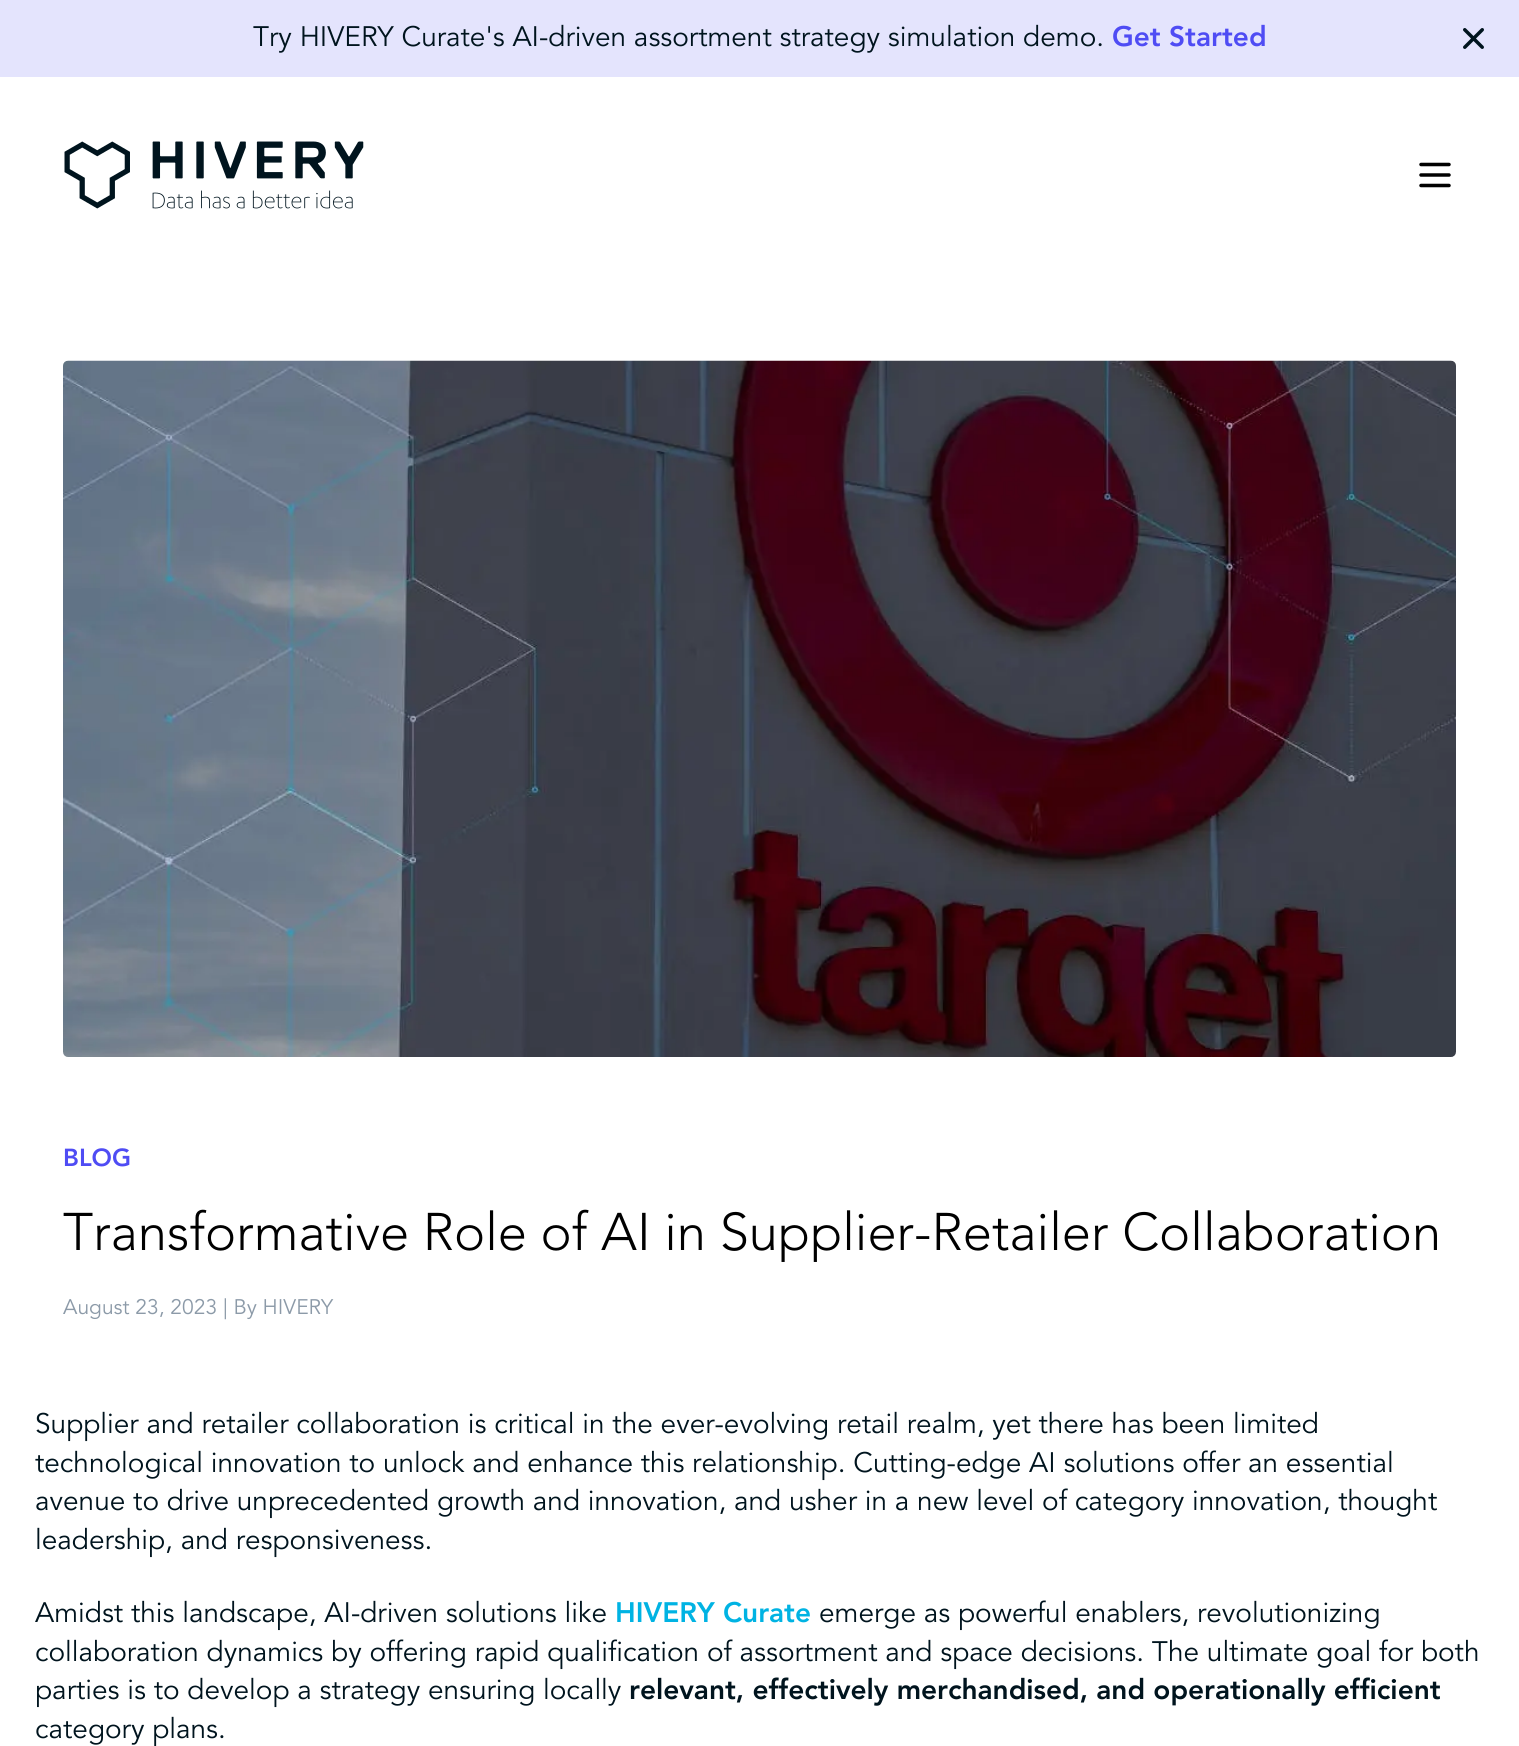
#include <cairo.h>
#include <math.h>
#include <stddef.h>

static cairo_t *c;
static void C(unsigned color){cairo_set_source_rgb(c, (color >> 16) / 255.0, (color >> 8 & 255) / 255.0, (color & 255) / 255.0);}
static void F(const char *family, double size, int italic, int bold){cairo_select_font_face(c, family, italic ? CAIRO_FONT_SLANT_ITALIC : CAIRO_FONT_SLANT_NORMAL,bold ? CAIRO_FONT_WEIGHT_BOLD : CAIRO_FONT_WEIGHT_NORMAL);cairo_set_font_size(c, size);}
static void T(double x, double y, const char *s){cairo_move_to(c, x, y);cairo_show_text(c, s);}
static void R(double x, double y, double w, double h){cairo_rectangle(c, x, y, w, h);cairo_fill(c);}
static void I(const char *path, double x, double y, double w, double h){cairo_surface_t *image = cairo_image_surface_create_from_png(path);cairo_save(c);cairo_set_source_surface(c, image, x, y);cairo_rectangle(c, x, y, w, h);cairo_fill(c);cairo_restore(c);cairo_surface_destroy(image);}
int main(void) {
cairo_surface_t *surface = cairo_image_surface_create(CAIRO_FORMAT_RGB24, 1519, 1746);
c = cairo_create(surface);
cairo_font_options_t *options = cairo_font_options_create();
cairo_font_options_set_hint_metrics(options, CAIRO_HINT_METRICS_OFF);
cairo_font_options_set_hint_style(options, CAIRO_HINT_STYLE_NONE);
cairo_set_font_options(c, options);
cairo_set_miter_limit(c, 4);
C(0xffffff);
cairo_paint(c);
C(0xe4e4fd);
R(0,0,1519,77);
F("Avenir",28,0,0);
C(0x00141e);
T(253,46,"Try HIVERY Curate's AI-driven assortment strategy simulation demo.");
F("Avenir Black",28,0,0);
C(0x4f4cf4);
T(1112,46,"Get Started");
I("1.png",1463,28,21,21);
I("2.png",64,141,300,68);
cairo_new_path(c);
cairo_move_to(c,1421,164.5);
cairo_line_to(c,1449,164.5);
cairo_move_to(c,1421,175);
cairo_line_to(c,1449,175);
cairo_move_to(c,1421,185.5);
cairo_line_to(c,1449,185.5);
C(0x000000);
cairo_set_line_width(c,3.5);
cairo_set_line_cap(c,CAIRO_LINE_CAP_ROUND);
cairo_set_line_join(c,CAIRO_LINE_JOIN_ROUND);
cairo_stroke(c);
I("3.png",63,360,1393,697);
F("Avenir Black",24.5,0,0);
C(0x4f4cf4);
T(63,1166,"BLOG");
F("Avenir Light",52.5,0,0);
C(0x000000);
T(63,1250,"Transformative Role of AI in Supplier-Retailer Collaboration");
F("Avenir",21,0,0);
C(0x8c9aa8);
T(63,1314,"August 23, 2023 | By HIVERY");
F("Avenir",28,0,0);
C(0x00141e);
T(35,1433,"Supplier and retailer collaboration is critical in the ever-evolving retail realm, yet there has been limited");
T(35,1472,"technological innovation to unlock and enhance this relationship. Cutting-edge AI solutions offer an essential");
T(35,1510,"avenue to drive unprecedented growth and innovation, and usher in a new level of category innovation, thought");
T(35,1549,"leadership, and responsiveness.");
T(35,1622,"Amidst this landscape, AI-driven solutions like");
F("Avenir Black",28,0,0);
C(0x00b3e3);
T(615,1622,"HIVERY Curate");
F("Avenir",28,0,0);
C(0x00141e);
T(819,1622,"emerge as powerful enablers, revolutionizing");
T(35,1661,"collaboration dynamics by offering rapid qualification of assortment and space decisions. The ultimate goal for both");
T(35,1699,"parties is to develop a strategy ensuring locally");
F("Avenir Black",28,0,0);
T(629,1699,"relevant, effectively merchandised, and operationally efficient");
F("Avenir",28,0,0);
T(35,1738,"category plans.");
cairo_surface_write_to_png(surface, "o.png");
cairo_font_options_destroy(options);
cairo_destroy(c);
cairo_surface_destroy(surface);
return 0;
}
